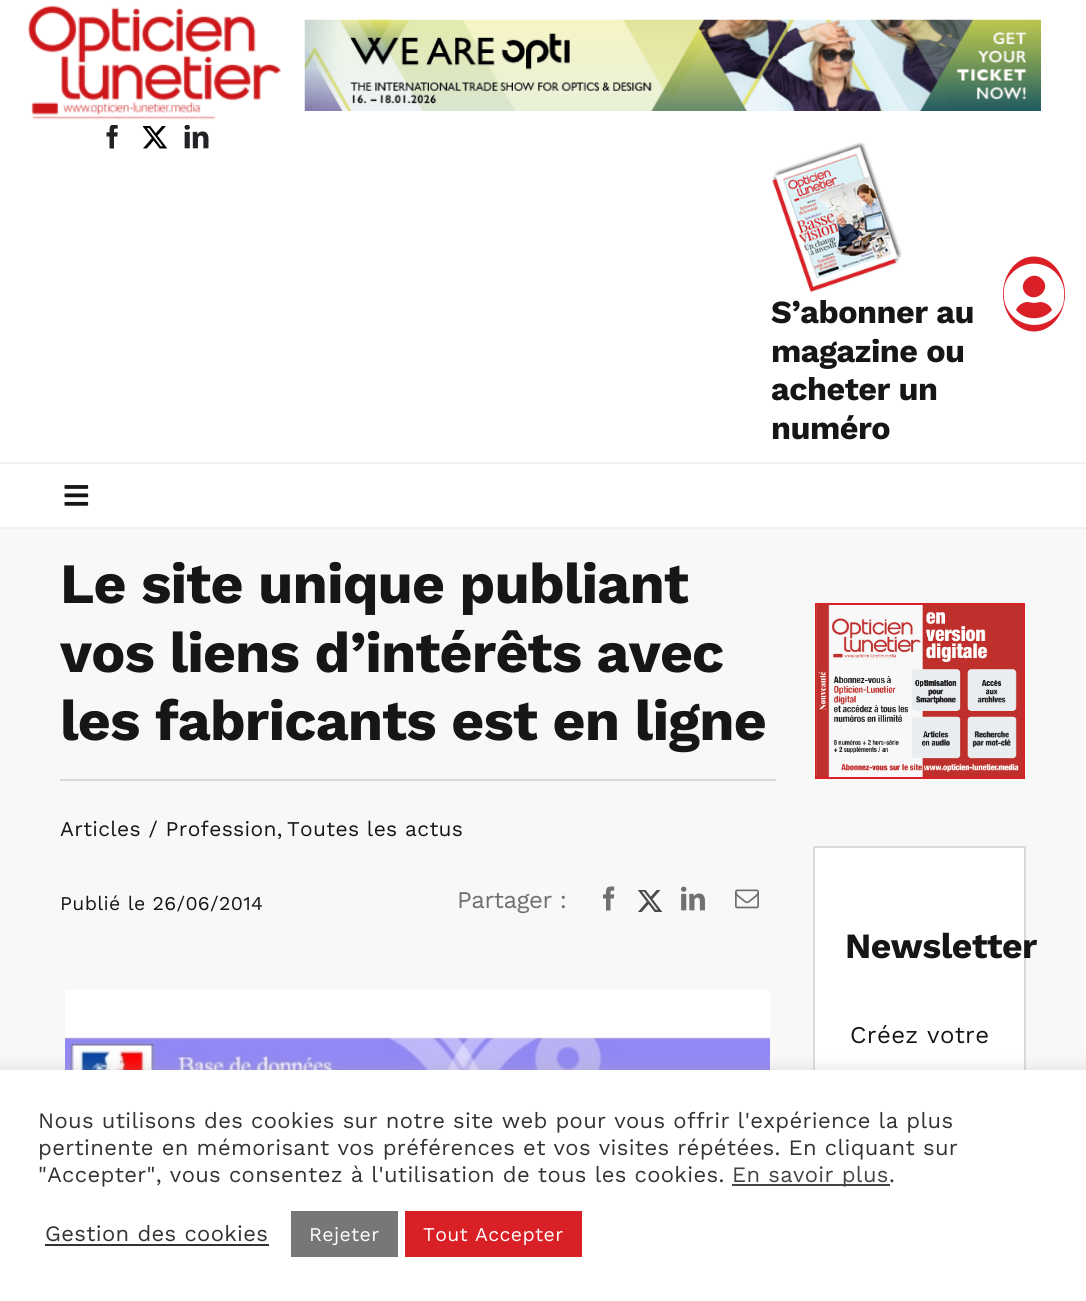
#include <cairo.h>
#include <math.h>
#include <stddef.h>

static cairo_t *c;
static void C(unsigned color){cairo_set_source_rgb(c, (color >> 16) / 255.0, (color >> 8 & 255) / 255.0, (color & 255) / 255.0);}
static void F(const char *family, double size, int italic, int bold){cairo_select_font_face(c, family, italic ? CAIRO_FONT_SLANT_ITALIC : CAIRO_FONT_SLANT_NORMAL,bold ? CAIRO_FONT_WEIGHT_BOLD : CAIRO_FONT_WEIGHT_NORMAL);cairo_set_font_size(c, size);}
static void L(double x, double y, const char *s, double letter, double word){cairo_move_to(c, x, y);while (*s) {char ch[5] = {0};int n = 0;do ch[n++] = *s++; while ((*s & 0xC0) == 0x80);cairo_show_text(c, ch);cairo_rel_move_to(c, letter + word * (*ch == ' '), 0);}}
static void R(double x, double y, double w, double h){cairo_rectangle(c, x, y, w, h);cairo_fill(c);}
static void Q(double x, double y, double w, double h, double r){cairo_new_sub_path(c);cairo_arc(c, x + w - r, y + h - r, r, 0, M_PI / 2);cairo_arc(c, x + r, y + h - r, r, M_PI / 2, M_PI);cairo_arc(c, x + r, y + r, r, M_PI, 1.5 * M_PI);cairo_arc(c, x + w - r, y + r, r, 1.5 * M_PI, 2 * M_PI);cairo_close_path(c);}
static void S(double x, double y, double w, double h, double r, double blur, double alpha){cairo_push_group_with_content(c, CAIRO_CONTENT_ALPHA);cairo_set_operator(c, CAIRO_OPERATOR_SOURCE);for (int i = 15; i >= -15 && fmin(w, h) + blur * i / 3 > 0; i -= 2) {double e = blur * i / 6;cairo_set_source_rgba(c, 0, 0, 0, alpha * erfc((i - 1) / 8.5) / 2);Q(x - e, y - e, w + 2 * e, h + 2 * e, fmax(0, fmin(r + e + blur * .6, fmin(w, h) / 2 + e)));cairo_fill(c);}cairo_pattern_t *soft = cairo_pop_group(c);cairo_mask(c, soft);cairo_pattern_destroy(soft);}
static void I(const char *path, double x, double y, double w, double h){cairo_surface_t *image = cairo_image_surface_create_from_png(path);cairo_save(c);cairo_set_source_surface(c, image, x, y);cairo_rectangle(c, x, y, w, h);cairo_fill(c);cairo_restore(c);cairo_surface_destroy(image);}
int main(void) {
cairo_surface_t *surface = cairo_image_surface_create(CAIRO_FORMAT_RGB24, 1086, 1301);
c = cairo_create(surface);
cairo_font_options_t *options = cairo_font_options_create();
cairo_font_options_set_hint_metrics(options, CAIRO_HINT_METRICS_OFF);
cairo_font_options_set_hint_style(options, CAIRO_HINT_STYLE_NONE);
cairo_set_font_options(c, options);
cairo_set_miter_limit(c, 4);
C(0xf8f8f8);
cairo_paint(c);
C(0xffffff);
R(0,0,1086,462);
I("1.png",28,5,254,115);
I("2.png",106,125,12,24);
I("3.png",143,126,25,23);
I("4.png",184,125,25,24);
I("5.png",304,19,737,92);
I("6.png",772,142,130,150);
F("Work Sans",32.25,0,1);
C(0x141617);
L(771,323,"S’abonner au",-.5,0);
L(771,362,"magazine ou",-.5,0);
L(771,400,"acheter un",-.5,0);
L(771,439,"numéro",-.5,0);
C(0xda1f26);
cairo_new_path(c);
cairo_move_to(c,1034,256.5);
cairo_curve_to(c,1051,256.5,1065,273.5,1065,294);
cairo_curve_to(c,1065,314.5,1051,331.5,1034,331.5);
cairo_curve_to(c,1017,331.5,1003,314.5,1003,294);
cairo_curve_to(c,1003,273.5,1017,256.5,1034,256.5);
cairo_close_path(c);
cairo_fill(c);
C(0xffffff);
cairo_new_path(c);
cairo_move_to(c,1012,273);
cairo_curve_to(c,1033,252,1067,269,1064,297);
cairo_curve_to(c,1064,305,1061,311,1056,316);
cairo_curve_to(c,1035,336,1001,320,1004,291);
cairo_curve_to(c,1004,284,1007,278,1012,273);
cairo_close_path(c);
cairo_move_to(c,1042,279);
cairo_curve_to(c,1032,269,1016,284,1026,294);
cairo_curve_to(c,1036,304,1052,289,1042,279);
cairo_close_path(c);
cairo_move_to(c,1016,310);
cairo_curve_to(c,1025,321,1043,321,1052,310);
cairo_curve_to(c,1050,305,1045,302,1040,302);
cairo_line_to(c,1034,303);
cairo_line_to(c,1028,302);
cairo_curve_to(c,1023,302,1018,305,1016,310);
cairo_close_path(c);
cairo_fill(c);
R(0,464,1086,63);
C(0xf0f0f0);
R(0,462,1086,2);
R(0,527,1086,2);
I("7.png",64,485,25,21);
F("Work Sans",57,0,1);
C(0x141617);
L(60,603,"Le site unique publiant",-.85,0);
L(60,672,"vos liens d’intérêts avec",-.85,0);
L(60,740,"les fabricants est en ligne",-.85,0);
C(0xdadada);
R(60,779,716,2);
F("Work Sans",21,0,0);
C(0x141617);
L(60,836,"Articles / Profession,",.35,0);
L(287,836,"Toutes les actus",.35,0);
F("Work Sans",19.5,0,0);
L(60,910,"Publié le 26/06/2014",.35,0);
F("Work Sans",24,0,0);
C(0x707070);
L(457,908,"Partager :",-.4,0);
I("8.png",603,886,12,25);
I("9.png",638,890,25,22);
I("10.png",681,886,24,25);
I("11.png",735,889,24,20);
I("12.png",65,990,705,80);
cairo_rectangle(c,816,604,208,174);
C(0xda1f26);
cairo_stroke(c);
I("13.png",816,604,207,173);
C(0xffffff);
R(815,848,209,222);
cairo_rectangle(c,814,847,211,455);
C(0xdadada);
cairo_stroke(c);
F("Work Sans",35.5,0,1);
C(0x141617);
L(845,958,"Newsletter",-.5,0);
F("Work Sans",24,0,0);
L(850,1043,"Créez votre",.35,0);
C(0xacabab);
S(0,1068,1086,233,0,7.5,.3);
C(0xffffff);
R(0,1070,1086,231);
F("Work Sans",22,0,0);
C(0x333333);
L(38,1128,"Nous utilisons des cookies sur notre site web pour vous offrir l'expérience la plus",.35,0);
L(38,1155,"pertinente en mémorisant vos préférences et vos visites répétées. En cliquant sur",.35,0);
L(38,1182,"\"Accepter\", vous consentez à l'utilisation de tous les cookies.",.35,0);
C(0x444444);
R(732,1184,158,2);
L(732,1182,"En savoir plus",.35,0);
C(0x333333);
L(889,1182,".",.35,0);
L(45,1241,"Gestion des cookies",.35,0);
R(45,1244,224,2);
C(0x777777);
R(291,1211,107,46);
F("Work Sans",19.5,0,0);
C(0xffffff);
L(309,1241,"Rejeter",.35,0);
C(0xd92026);
R(405,1211,177,46);
C(0xffffff);
L(423,1241,"Tout Accepter",.35,0);
cairo_surface_write_to_png(surface, "o.png");
cairo_font_options_destroy(options);
cairo_destroy(c);
cairo_surface_destroy(surface);
return 0;
}
